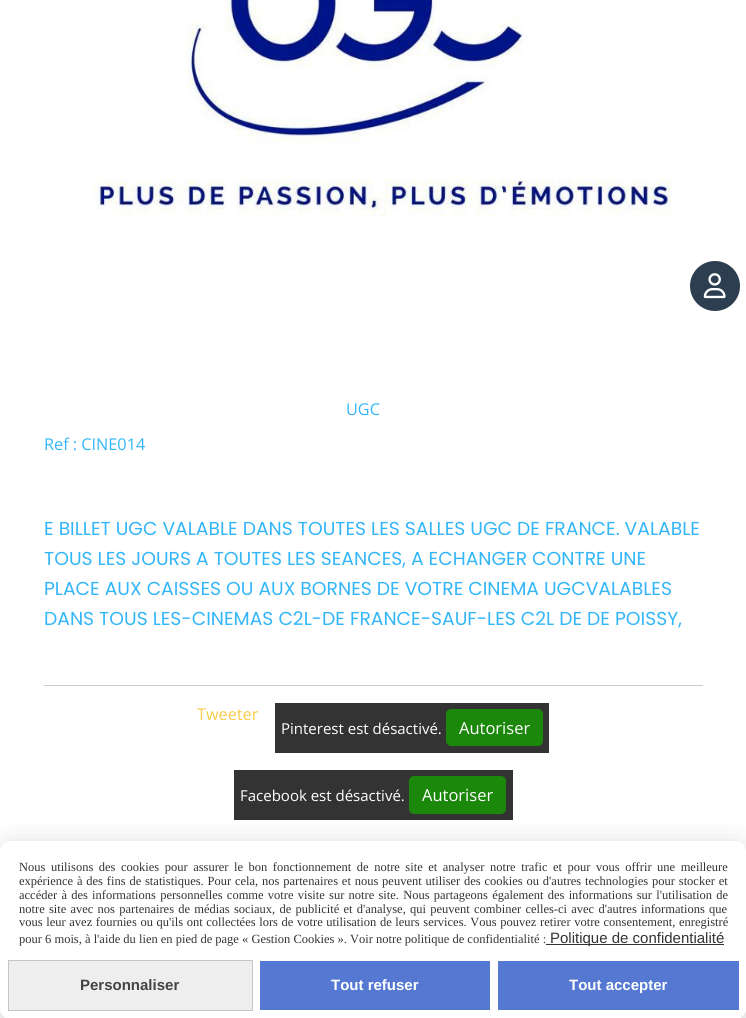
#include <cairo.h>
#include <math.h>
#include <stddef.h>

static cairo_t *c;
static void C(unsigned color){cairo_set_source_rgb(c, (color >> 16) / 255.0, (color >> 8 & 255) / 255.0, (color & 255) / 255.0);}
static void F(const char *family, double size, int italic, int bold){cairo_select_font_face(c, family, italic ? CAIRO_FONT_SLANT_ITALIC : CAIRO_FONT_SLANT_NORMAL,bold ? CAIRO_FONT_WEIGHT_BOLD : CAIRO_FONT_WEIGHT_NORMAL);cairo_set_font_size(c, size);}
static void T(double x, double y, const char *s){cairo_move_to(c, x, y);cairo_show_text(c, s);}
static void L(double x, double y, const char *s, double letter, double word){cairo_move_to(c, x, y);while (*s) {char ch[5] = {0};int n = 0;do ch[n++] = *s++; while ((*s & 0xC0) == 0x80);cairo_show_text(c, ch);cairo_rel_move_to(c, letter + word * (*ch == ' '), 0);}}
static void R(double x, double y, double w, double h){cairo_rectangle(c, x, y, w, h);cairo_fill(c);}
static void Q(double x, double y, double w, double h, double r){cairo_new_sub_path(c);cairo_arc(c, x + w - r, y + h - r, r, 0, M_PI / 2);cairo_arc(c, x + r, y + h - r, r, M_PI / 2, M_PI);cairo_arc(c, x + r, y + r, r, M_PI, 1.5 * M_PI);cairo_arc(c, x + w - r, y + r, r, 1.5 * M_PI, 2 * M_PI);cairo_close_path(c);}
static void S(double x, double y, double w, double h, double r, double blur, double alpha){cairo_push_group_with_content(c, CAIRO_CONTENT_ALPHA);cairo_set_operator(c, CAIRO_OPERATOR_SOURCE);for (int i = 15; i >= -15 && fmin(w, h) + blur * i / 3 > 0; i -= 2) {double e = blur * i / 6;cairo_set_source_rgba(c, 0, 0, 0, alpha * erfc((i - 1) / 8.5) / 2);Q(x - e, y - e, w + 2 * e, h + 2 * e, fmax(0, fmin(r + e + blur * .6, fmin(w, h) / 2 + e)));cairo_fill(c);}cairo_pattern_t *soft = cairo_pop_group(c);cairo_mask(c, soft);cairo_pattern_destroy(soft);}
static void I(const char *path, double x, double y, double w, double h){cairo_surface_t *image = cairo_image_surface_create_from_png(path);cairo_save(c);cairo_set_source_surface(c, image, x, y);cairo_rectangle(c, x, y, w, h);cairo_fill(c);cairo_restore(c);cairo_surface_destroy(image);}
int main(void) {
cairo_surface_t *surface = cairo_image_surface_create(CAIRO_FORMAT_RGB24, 746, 1018);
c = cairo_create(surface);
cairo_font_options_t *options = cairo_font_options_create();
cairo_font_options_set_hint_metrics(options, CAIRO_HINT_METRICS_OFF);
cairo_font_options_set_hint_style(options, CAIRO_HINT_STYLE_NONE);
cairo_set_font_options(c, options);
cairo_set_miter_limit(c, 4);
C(0xffffff);
cairo_paint(c);
C(0x2c3e50);
cairo_arc(c,715,286,25,0,2 * M_PI);
cairo_fill(c);
I("1.png",703,273,23,26);
I("2.png",92,0,579,217);
F("Open Sans",16.25,0,0);
C(0x33b6f9);
T(346,415,"UGC");
T(44,450,"Ref : CINE014");
F("Poppins",18.75,0,0);
T(44,535,"E BILLET UGC VALABLE DANS TOUTES LES SALLES UGC DE FRANCE. VALABLE");
T(44,565,"TOUS LES JOURS A TOUTES LES SEANCES, A ECHANGER CONTRE UNE");
T(44,595,"PLACE AUX CAISSES OU AUX BORNES DE VOTRE CINEMA UGCVALABLES");
T(44,625,"DANS TOUS LES-CINEMAS C2L-DE FRANCE-SAUF-LES C2L DE DE POISSY,");
C(0xcccccc);
R(44,685,659,1);
F("Open Sans",16.25,0,0);
C(0xf6cc4c);
T(197,720,"Tweeter");
C(0x333333);
R(275,703,274,50);
F("Open Sans",15,0,0);
C(0xffffff);
T(281,734,"Pinterest est désactivé.");
C(0x1b870b);
Q(446,709,97,37,5);
cairo_fill(c);
F("Open Sans",16.5,0,0);
C(0xffffff);
T(459,734,"Autoriser");
C(0x333333);
R(234,770,279,50);
F("Open Sans",15,0,0);
C(0xffffff);
T(240,801,"Facebook est désactivé.");
C(0x1b870b);
Q(409,776,97,38,5);
cairo_fill(c);
F("Open Sans",16.5,0,0);
C(0xffffff);
T(422,801,"Autoriser");
C(0x000000);
S(0,844,746,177,10,4,.05);
S(0,846,746,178,10,15,.15);
C(0xffffff);
Q(0,841,746,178,10);
cairo_fill(c);
F("Liberation Serif",12.5,0,0);
C(0x333333);
L(19,871,"Nous utilisons des cookies pour assurer le bon fonctionnement de notre site et analyser notre trafic et pour vous offrir une meilleure",0,2.4);
L(19,885,"expérience à des fins de statistiques. Pour cela, nos partenaires et nous peuvent utiliser des cookies ou d'autres technologies pour stocker et",0,.7);
L(19,899,"accéder à des informations personnelles comme votre visite sur notre site. Nous partageons également des informations sur l'utilisation de",0,1.1);
L(19,913,"notre site avec nos partenaires de médias sociaux, de publicité et d'analyse, qui peuvent combiner celles-ci avec d'autres informations que",0,1.1);
L(19,926,"vous leur avez fournies ou qu'ils ont collectées lors de votre utilisation de leurs services. Vous pouvez retirer votre consentement, enregistré",0,.5);
T(19,943,"pour 6 mois, à l'aide du lien en pied de page « Gestion Cookies ». Voir notre politique de confidentialité :");
R(546,944,178,1);
F("Liberation Sans",15,0,0);
T(550,943,"Politique de confidentialité");
C(0xeeeeee);
cairo_rectangle(c,8.5,960.5,244,50);
cairo_fill_preserve(c);
C(0xc5c5c5);
cairo_set_line_width(c,1);
cairo_stroke(c);
F("Liberation Sans",15,0,1);
C(0x444444);
T(80,990,"Personnaliser");
C(0x5579d2);
R(260,961,230,49);
C(0xffffff);
T(331,990,"Tout refuser");
C(0x5579d2);
R(498,961,241,49);
C(0xffffff);
T(569,990,"Tout accepter");
cairo_surface_write_to_png(surface, "o.png");
cairo_font_options_destroy(options);
cairo_destroy(c);
cairo_surface_destroy(surface);
return 0;
}
